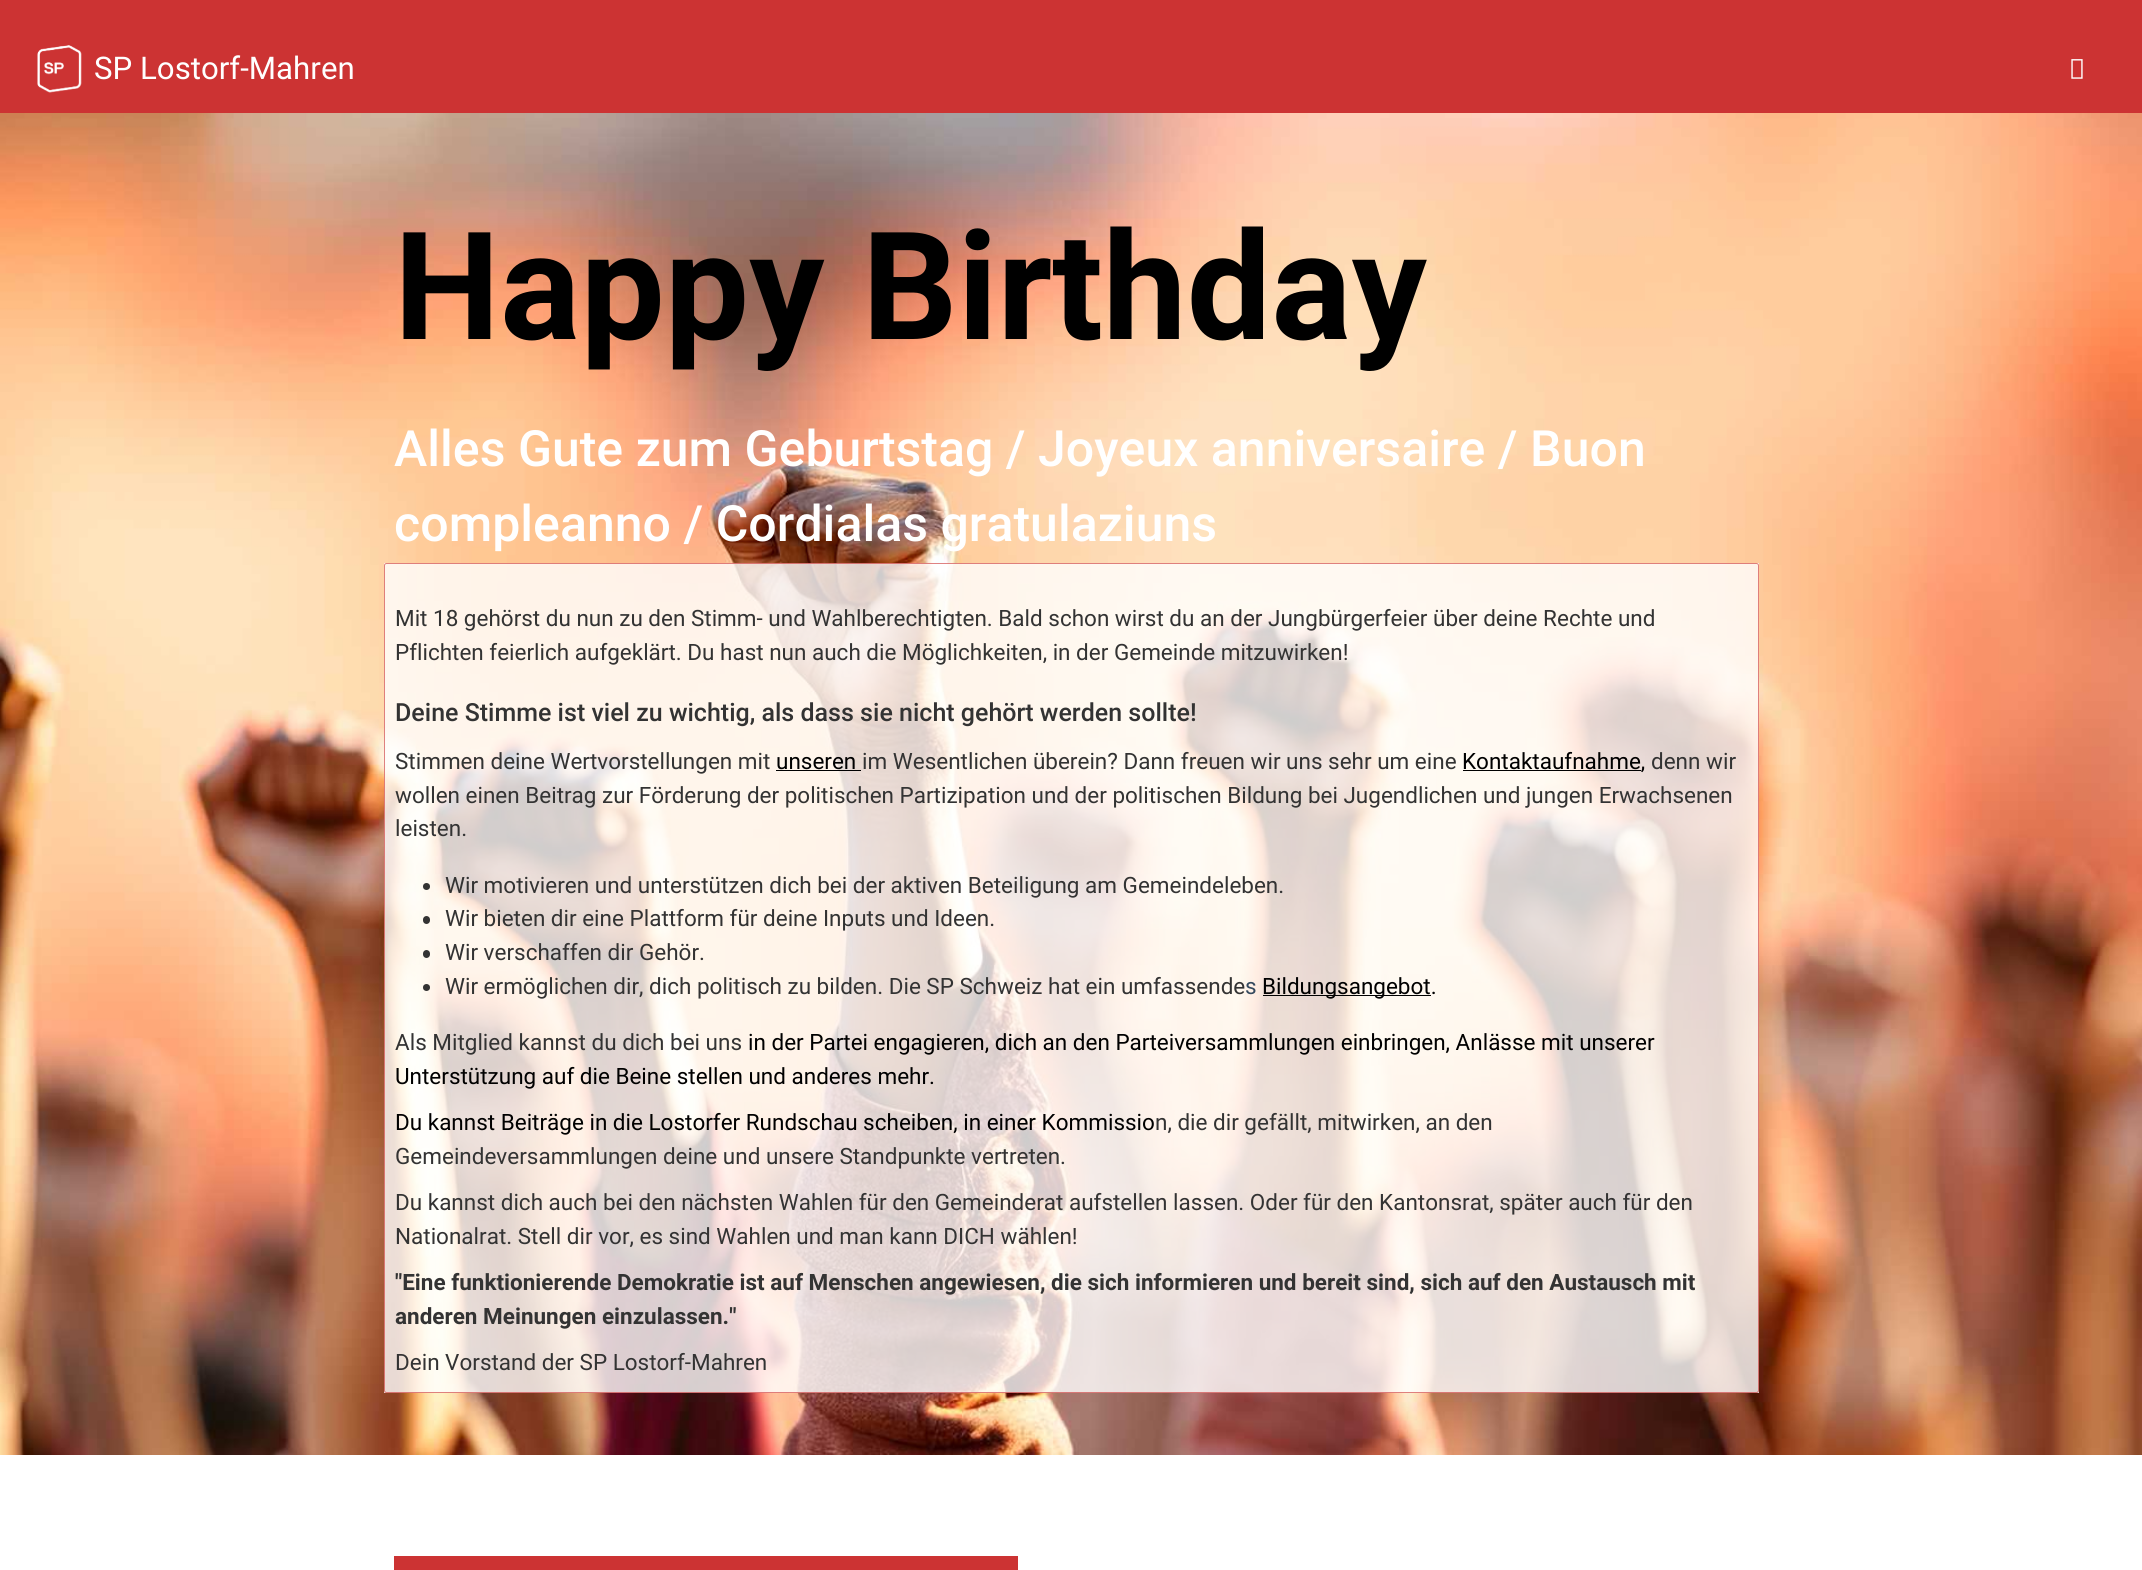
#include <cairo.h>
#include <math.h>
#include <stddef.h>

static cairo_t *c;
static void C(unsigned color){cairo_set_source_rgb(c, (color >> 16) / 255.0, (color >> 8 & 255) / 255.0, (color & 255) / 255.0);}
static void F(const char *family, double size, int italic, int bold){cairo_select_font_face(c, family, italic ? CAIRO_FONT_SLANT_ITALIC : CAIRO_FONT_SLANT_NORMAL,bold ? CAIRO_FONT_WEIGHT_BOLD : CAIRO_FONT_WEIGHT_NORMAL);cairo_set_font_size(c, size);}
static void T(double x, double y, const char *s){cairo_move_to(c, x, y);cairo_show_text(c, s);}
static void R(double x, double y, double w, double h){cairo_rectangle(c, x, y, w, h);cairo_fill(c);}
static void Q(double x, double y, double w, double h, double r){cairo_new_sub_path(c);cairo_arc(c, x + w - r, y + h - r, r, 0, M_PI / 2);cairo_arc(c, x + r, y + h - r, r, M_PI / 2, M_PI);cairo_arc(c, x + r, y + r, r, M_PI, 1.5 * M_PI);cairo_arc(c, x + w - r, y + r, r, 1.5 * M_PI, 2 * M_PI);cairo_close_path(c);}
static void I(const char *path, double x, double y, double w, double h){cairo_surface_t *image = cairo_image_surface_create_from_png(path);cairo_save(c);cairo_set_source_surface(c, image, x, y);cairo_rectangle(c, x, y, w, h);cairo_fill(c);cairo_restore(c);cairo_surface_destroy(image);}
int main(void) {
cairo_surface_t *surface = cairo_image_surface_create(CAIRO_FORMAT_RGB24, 2142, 1570);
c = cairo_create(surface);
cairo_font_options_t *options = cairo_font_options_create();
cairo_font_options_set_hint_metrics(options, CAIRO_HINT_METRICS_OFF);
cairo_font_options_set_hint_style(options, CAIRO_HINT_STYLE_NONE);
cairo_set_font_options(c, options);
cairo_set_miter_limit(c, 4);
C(0xffffff);
cairo_paint(c);
C(0xcc3333);
R(0,0,2142,113);
I("1.png",37,45,45,48);
F("Roboto",31.25,0,0);
C(0xffffff);
T(94,79,"SP Lostorf-Mahren");
I("2.png",2071,59,12,20);
I("3.png",0,113,2142,1342);
F("Roboto",150,0,1);
C(0x000000);
T(394,339,"Happy Birthday");
F("Roboto Medium",50,0,0);
C(0xffffff);
T(394,466,"Alles Gute zum Geburtstag / Joyeux anniversaire / Buon");
T(394,541,"compleanno / Cordialas gratulaziuns");
cairo_set_source_rgba(c,1,1,1,0.8);
R(384,563,1375,830);
Q(384.5,563.5,1374,829,2);
cairo_set_source_rgba(c,0.8,0.2,0.2,0.61);
cairo_set_line_width(c,1);
cairo_stroke(c);
F("Roboto",22.5,0,0);
C(0x333333);
T(395,626,"Mit 18 gehörst du nun zu den Stimm- und Wahlberechtigten. Bald schon wirst du an der Jungbürgerfeier über deine Rechte und");
T(395,660,"Pflichten feierlich aufgeklärt. Du hast nun auch die Möglichkeiten, in der Gemeinde mitzuwirken!");
F("Roboto Medium",25,0,0);
T(395,721,"Deine Stimme ist viel zu wichtig, als dass sie nicht gehört werden sollte!");
F("Roboto",22.5,0,0);
T(395,769,"Stimmen deine Wertvorstellungen mit");
C(0x000000);
T(776,769,"unseren");
R(776,770,85,1);
C(0x333333);
T(862,769,"im Wesentlichen überein? Dann freuen wir uns sehr um eine");
C(0x000000);
R(1463,770,178,1);
T(1462,769,"Kontaktaufnahme,");
C(0x333333);
T(1651,769,"denn wir");
T(395,803,"wollen einen Beitrag zur Förderung der politischen Partizipation und der politischen Bildung bei Jugendlichen und jungen Erwachsenen");
T(395,836,"leisten.");
cairo_new_path(c);
cairo_arc(c,426.5,886.5,3.5,0,2 * M_PI);
cairo_fill(c);
T(445,893,"Wir motivieren und unterstützen dich bei der aktiven Beteiligung am Gemeindeleben.");
Q(423,916,7,8,3.5);
cairo_fill(c);
T(445,926,"Wir bieten dir eine Plattform für deine Inputs und Ideen.");
Q(423,950,7,8,3.5);
cairo_fill(c);
T(445,960,"Wir verschaffen dir Gehör.");
cairo_new_path(c);
cairo_arc(c,426.5,987.5,3.5,0,2 * M_PI);
cairo_fill(c);
T(445,994,"Wir ermöglichen dir, dich politisch zu bilden. Die SP Schweiz hat ein umfassende");
C(0x34495e);
T(1245,994,"s");
C(0x000000);
R(1263,995,168,1);
T(1262,994,"Bildungsangebot.");
C(0x333333);
T(395,1050,"Als Mitglied kannst du dich bei uns");
C(0x000000);
T(748,1050,"in der Partei engagieren, dich an den Parteiversammlungen einbringen, Anlässe mit unserer");
T(395,1084,"Unterstützung auf die Beine stellen und anderes mehr.");
T(395,1130,"Du kannst Beiträge in die Lostorfer Rundschau scheiben, in einer Kommissio");
C(0x333333);
T(1155,1130,"n, die dir gefällt, mitwirken, an den");
T(395,1164,"Gemeindeversammlungen deine und unsere Standpunkte vertreten.");
T(395,1210,"Du kannst dich auch bei den nächsten Wahlen für den Gemeinderat aufstellen lassen. Oder für den Kantonsrat, später auch für den");
T(395,1244,"Nationalrat. Stell dir vor, es sind Wahlen und man kann DICH wählen!");
F("Roboto",22.5,0,1);
T(395,1290,"\"Eine funktionierende Demokratie ist auf Menschen angewiesen, die sich informieren und bereit sind, sich auf den Austausch mit");
T(395,1324,"anderen Meinungen einzulassen.\"");
F("Roboto",22.5,0,0);
T(395,1370,"Dein Vorstand der SP Lostorf-Mahren");
C(0xcc3333);
R(394,1556,624,14);
cairo_surface_write_to_png(surface, "o.png");
cairo_font_options_destroy(options);
cairo_destroy(c);
cairo_surface_destroy(surface);
return 0;
}
